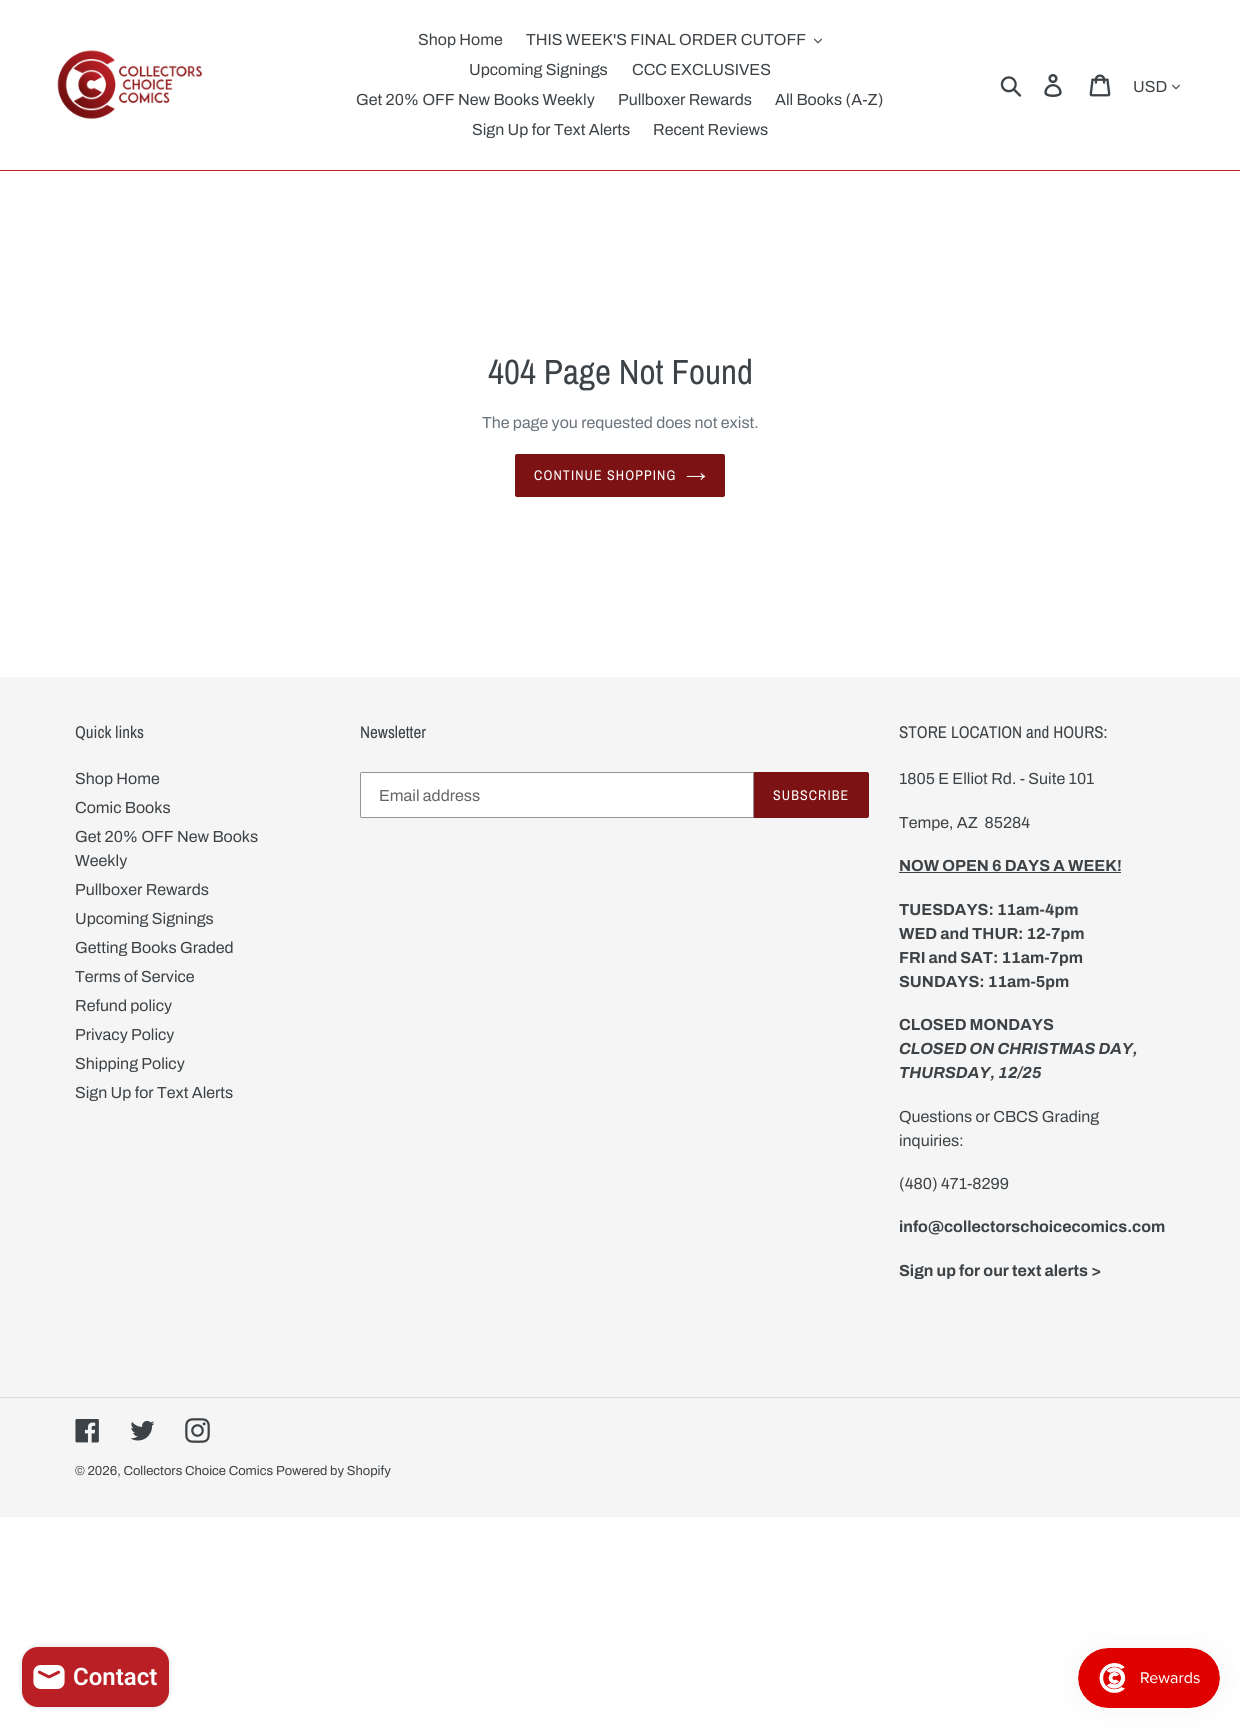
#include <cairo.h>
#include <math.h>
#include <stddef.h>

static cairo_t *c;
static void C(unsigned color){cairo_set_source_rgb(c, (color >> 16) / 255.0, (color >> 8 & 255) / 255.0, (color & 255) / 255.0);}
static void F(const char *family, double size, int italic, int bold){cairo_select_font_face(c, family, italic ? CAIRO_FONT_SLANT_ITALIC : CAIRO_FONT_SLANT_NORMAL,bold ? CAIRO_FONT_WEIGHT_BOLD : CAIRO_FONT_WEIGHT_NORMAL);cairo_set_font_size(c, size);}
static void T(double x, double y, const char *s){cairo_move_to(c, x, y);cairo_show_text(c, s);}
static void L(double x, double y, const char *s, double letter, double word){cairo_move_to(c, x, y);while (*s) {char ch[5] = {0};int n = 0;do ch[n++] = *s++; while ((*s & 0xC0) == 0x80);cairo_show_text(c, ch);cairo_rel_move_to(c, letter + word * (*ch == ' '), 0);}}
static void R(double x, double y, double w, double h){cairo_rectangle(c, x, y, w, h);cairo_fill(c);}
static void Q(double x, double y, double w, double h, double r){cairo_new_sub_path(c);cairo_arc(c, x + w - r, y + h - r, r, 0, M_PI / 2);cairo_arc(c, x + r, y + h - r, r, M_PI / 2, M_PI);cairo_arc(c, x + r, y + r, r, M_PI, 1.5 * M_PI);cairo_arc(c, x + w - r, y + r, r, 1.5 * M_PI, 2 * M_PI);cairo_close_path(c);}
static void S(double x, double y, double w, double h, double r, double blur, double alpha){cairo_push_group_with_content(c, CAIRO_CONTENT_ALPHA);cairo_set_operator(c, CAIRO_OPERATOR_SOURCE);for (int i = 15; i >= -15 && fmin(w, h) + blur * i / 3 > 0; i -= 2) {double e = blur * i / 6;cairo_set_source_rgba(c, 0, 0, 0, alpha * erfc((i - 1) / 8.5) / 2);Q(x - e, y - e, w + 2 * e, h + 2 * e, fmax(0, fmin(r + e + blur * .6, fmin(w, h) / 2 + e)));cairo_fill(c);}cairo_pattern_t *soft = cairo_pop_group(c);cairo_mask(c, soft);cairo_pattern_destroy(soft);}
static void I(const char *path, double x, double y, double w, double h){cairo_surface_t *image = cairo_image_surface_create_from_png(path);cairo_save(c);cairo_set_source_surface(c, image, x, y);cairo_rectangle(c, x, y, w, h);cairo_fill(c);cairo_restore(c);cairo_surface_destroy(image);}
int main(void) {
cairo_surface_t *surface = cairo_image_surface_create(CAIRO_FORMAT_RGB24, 1240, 1728);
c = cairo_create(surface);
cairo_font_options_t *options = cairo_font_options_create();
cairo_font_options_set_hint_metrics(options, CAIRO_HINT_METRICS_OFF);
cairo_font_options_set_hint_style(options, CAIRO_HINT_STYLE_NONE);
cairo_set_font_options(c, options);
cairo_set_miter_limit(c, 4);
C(0xffffff);
cairo_paint(c);
C(0xb91f25);
R(0,170,1240,1);
I("1.png",57,50,146,69);
F("Archivo",16,0,0);
C(0x3d4246);
T(418,45,"Shop Home");
T(526,45,"THIS WEEK'S FINAL ORDER CUTOFF");
I("2.png",814,38,8,6);
T(469,75,"Upcoming Signings");
T(632,75,"CCC EXCLUSIVES");
T(356,105,"Get 20% OFF New Books Weekly");
T(618,105,"Pullboxer Rewards");
T(775,105,"All Books (A-Z)");
T(472,135,"Sign Up for Text Alerts");
T(653,135,"Recent Reviews");
I("3.png",1000,76,22,21);
I("4.png",1044,74,18,23);
I("5.png",1089,74,22,23);
T(1133,92,"USD");
I("2.png",1172,84,8,6);
F("Archivo Narrow",35,0,0);
T(488,384,"404 Page Not Found");
F("Archivo",16,0,0);
C(0x69727b);
T(482,428,"The page you requested does not exist.");
C(0x7c1214);
Q(515,454,210,43,2);
cairo_fill(c);
F("Archivo Narrow",14,0,0);
C(0xffffff);
L(534,480,"CONTINUE SHOPPING",1.1,0);
I("6.png",686,472,20,8);
C(0xf5f5f5);
R(0,677,1240,840);
F("Archivo Narrow",17,0,0);
C(0x3d4246);
T(75,738,"Quick links");
F("Archivo",16,0,0);
T(75,784,"Shop Home");
T(75,813,"Comic Books");
T(75,842,"Get 20% OFF New Books");
T(75,866,"Weekly");
T(75,895,"Pullboxer Rewards");
T(75,924,"Upcoming Signings");
T(75,953,"Getting Books Graded");
T(75,982,"Terms of Service");
T(75,1011,"Refund policy");
T(75,1040,"Privacy Policy");
T(75,1069,"Shipping Policy");
T(75,1098,"Sign Up for Text Alerts");
F("Archivo Narrow",17,0,0);
T(360,738,"Newsletter");
C(0xffffff);
cairo_new_path(c);
cairo_move_to(c,362,772.5);
cairo_line_to(c,753.5,772.5);
cairo_line_to(c,753.5,817.5);
cairo_line_to(c,362,817.5);
cairo_curve_to(c,361,817.5,360.5,817,360.5,816);
cairo_line_to(c,360.5,774);
cairo_curve_to(c,360.5,773,361,772.5,362,772.5);
cairo_close_path(c);
cairo_fill_preserve(c);
C(0x949494);
cairo_set_line_width(c,1);
cairo_stroke(c);
F("Archivo",16,0,0);
C(0x666666);
T(379,801,"Email address");
C(0x7c1214);
cairo_new_path(c);
cairo_move_to(c,754,772);
cairo_line_to(c,867,772);
cairo_curve_to(c,868,772,869,773,869,774);
cairo_line_to(c,869,816);
cairo_curve_to(c,869,817,868,818,867,818);
cairo_line_to(c,754,818);
cairo_close_path(c);
cairo_fill(c);
F("Archivo Narrow",14,0,0);
C(0xffffff);
L(773,800,"SUBSCRIBE",1.1,0);
F("Archivo Narrow",17,0,0);
C(0x3d4246);
T(899,738,"STORE LOCATION and HOURS:");
F("Archivo",16,0,0);
T(899,784,"1805 E Elliot Rd. - Suite 101");
T(899,828,"Tempe, AZ  85284");
F("Archivo",16,0,1);
T(899,871,"NOW OPEN 6 DAYS A WEEK!");
R(899,872,222,1);
T(899,915,"TUESDAYS: 11am-4pm");
T(899,939,"WED and THUR: 12-7pm");
T(899,963,"FRI and SAT: 11am-7pm");
T(899,987,"SUNDAYS: 11am-5pm");
T(899,1030,"CLOSED MONDAYS");
F("Archivo",16,1,1);
T(899,1054,"CLOSED ON CHRISTMAS DAY,");
T(899,1078,"THURSDAY, 12/25");
F("Archivo",16,0,0);
T(899,1122,"Questions or CBCS Grading");
T(899,1146,"inquiries:");
T(899,1189,"(480) 471-8299");
F("Archivo",16,0,1);
T(899,1232,"info@collectorschoicecomics.com");
T(899,1276,"Sign up for our text alerts >");
C(0xdcdcdc);
R(0,1397,1240,1);
I("7.png",75,1419,24,24);
I("8.png",130,1421,25,20);
I("9.png",185,1418,25,25);
F("Archivo",13,0,0);
C(0x3d4246);
T(75,1475,"© 2026, Collectors Choice Comics");
T(276,1475,"Powered by Shopify");
C(0x000000);
S(22,1647,147,60,16,2.5,.15);
C(0xb91f25);
Q(22,1647,147,60,16);
cairo_fill(c);
I("10.png",33,1665,32,24);
F("Roboto SemiBold",24,0,0);
C(0xffffff);
T(73,1685,"Contact");
C(0x000000);
S(1078,1648,142,60,30,12.5,.05);
I("11.png",1078,1648,142,60);
cairo_surface_write_to_png(surface, "o.png");
cairo_font_options_destroy(options);
cairo_destroy(c);
cairo_surface_destroy(surface);
return 0;
}
